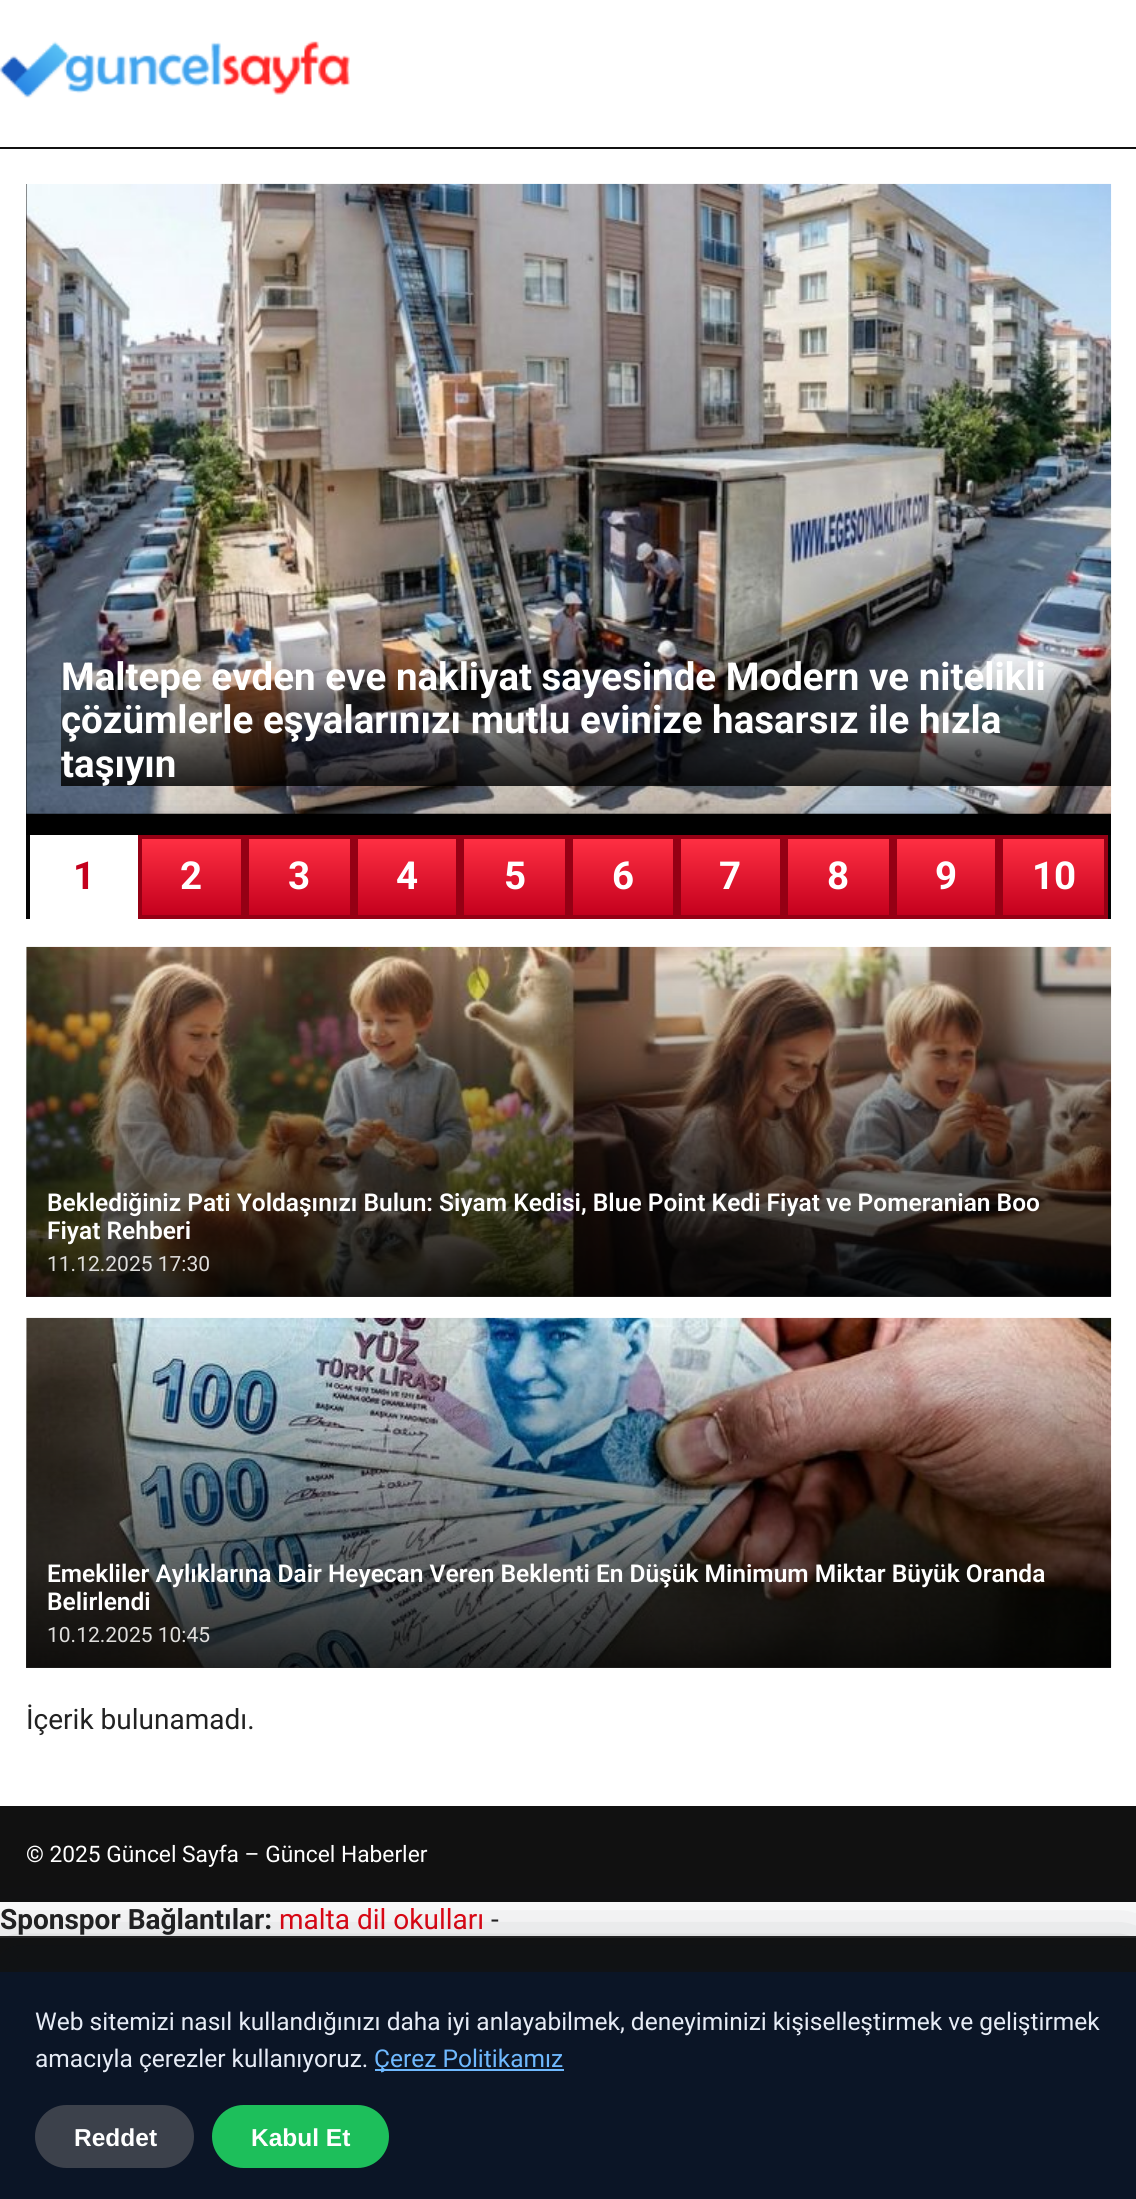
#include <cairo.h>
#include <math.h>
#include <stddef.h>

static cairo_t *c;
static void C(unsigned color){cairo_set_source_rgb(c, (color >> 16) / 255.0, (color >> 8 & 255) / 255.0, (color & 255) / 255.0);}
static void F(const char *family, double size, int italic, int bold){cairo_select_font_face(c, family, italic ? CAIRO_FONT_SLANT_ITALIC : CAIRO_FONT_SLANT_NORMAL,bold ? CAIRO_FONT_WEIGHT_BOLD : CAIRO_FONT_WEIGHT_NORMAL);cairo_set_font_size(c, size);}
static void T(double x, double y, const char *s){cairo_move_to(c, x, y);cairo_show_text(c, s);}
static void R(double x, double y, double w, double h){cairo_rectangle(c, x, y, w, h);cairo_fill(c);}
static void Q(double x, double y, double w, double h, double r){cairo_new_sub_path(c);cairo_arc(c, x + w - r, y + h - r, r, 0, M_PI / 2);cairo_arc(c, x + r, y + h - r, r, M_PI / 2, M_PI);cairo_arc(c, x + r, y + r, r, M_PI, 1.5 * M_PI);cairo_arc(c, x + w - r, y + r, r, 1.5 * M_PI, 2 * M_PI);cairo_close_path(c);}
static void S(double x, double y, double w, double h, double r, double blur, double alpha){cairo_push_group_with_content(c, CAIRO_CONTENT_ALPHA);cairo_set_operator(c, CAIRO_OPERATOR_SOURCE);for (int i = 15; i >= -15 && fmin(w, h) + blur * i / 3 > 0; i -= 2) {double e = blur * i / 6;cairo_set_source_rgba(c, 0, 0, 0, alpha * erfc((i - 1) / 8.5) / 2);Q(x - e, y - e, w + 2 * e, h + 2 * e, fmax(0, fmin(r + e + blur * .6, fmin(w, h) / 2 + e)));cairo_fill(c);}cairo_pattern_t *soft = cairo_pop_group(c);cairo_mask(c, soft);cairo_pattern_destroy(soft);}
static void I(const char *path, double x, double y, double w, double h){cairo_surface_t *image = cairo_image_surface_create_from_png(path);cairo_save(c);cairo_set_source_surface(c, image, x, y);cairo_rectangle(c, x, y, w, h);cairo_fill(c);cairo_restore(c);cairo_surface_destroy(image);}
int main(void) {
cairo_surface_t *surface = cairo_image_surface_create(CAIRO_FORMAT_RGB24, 1136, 2199);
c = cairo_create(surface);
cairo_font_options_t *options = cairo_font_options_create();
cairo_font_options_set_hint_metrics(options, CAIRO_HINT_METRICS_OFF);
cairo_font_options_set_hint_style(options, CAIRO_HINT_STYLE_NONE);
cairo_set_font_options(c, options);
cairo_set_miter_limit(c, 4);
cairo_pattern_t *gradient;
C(0xffffff);
cairo_paint(c);
I("1.png",0,41,350,57);
C(0x111111);
R(0,147,1136,2);
C(0x000000);
R(26,184,1085,651);
I("2.png",26,183,1086,631);
F("Roboto",38.5,0,1);
C(0xffffff);
T(61,690,"Maltepe evden eve nakliyat sayesinde Modern ve nitelikli");
T(61,733,"çözümlerle eşyalarınızı mutlu evinize hasarsız ile hızla");
T(61,777,"taşıyın");
I("3.png",26,946,1086,351);
gradient = cairo_pattern_create_linear(569,1297,569,947);
cairo_pattern_add_color_stop_rgba(gradient,0,0,0,0,.85);
cairo_pattern_add_color_stop_rgba(gradient,1,0,0,0,0);
cairo_set_source(c,gradient);
cairo_pattern_destroy(gradient);
R(26,956,1085,341);
cairo_save(c);
cairo_rectangle(c,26,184,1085,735);
cairo_clip(c);
C(0x000000);
S(26,824,1085,84,0,16,.35);
cairo_restore(c);
C(0x050505);
R(26,835,1085,84);
C(0xffffff);
R(30,835,108,84);
C(0xc4001d);
T(73,889,"1");
gradient = cairo_pattern_create_linear(192,838,192,915);
cairo_pattern_add_color_stop_rgba(gradient,0,1,0.188,0.263,1);
cairo_pattern_add_color_stop_rgba(gradient,1,0.769,0,0.114,1);
cairo_set_source(c,gradient);
cairo_pattern_destroy(gradient);
R(142,839,99,76);
cairo_rectangle(c,140,837,103,80);
C(0x950014);
cairo_set_line_width(c,4);
cairo_stroke(c);
C(0xffffff);
T(180,889,"2");
gradient = cairo_pattern_create_linear(299,838,299,915);
cairo_pattern_add_color_stop_rgba(gradient,0,1,0.188,0.263,1);
cairo_pattern_add_color_stop_rgba(gradient,1,0.769,0,0.114,1);
cairo_set_source(c,gradient);
cairo_pattern_destroy(gradient);
R(249,839,101,76);
cairo_rectangle(c,247,837,105,80);
C(0x950014);
cairo_stroke(c);
C(0xffffff);
T(288,889,"3");
gradient = cairo_pattern_create_linear(407,838,407,915);
cairo_pattern_add_color_stop_rgba(gradient,0,1,0.188,0.263,1);
cairo_pattern_add_color_stop_rgba(gradient,1,0.769,0,0.114,1);
cairo_set_source(c,gradient);
cairo_pattern_destroy(gradient);
R(358,839,98,76);
cairo_rectangle(c,356,837,102,80);
C(0x950014);
cairo_stroke(c);
C(0xffffff);
T(396,889,"4");
gradient = cairo_pattern_create_linear(515,838,515,915);
cairo_pattern_add_color_stop_rgba(gradient,0,1,0.188,0.263,1);
cairo_pattern_add_color_stop_rgba(gradient,1,0.769,0,0.114,1);
cairo_set_source(c,gradient);
cairo_pattern_destroy(gradient);
R(464,839,101,76);
cairo_rectangle(c,462,837,105,80);
C(0x950014);
cairo_stroke(c);
C(0xffffff);
T(504,889,"5");
gradient = cairo_pattern_create_linear(623,838,623,915);
cairo_pattern_add_color_stop_rgba(gradient,0,1,0.188,0.263,1);
cairo_pattern_add_color_stop_rgba(gradient,1,0.769,0,0.114,1);
cairo_set_source(c,gradient);
cairo_pattern_destroy(gradient);
R(573,839,100,76);
cairo_rectangle(c,571,837,104,80);
C(0x950014);
cairo_stroke(c);
C(0xffffff);
T(612,889,"6");
gradient = cairo_pattern_create_linear(731,838,731,915);
cairo_pattern_add_color_stop_rgba(gradient,0,1,0.188,0.263,1);
cairo_pattern_add_color_stop_rgba(gradient,1,0.769,0,0.114,1);
cairo_set_source(c,gradient);
cairo_pattern_destroy(gradient);
R(681,839,99,76);
cairo_rectangle(c,679,837,103,80);
C(0x950014);
cairo_stroke(c);
C(0xffffff);
T(719,889,"7");
gradient = cairo_pattern_create_linear(838,838,838,915);
cairo_pattern_add_color_stop_rgba(gradient,0,1,0.188,0.263,1);
cairo_pattern_add_color_stop_rgba(gradient,1,0.769,0,0.114,1);
cairo_set_source(c,gradient);
cairo_pattern_destroy(gradient);
R(788,839,101,76);
cairo_rectangle(c,786,837,105,80);
C(0x950014);
cairo_stroke(c);
C(0xffffff);
T(827,889,"8");
gradient = cairo_pattern_create_linear(946,838,946,915);
cairo_pattern_add_color_stop_rgba(gradient,0,1,0.188,0.263,1);
cairo_pattern_add_color_stop_rgba(gradient,1,0.769,0,0.114,1);
cairo_set_source(c,gradient);
cairo_pattern_destroy(gradient);
R(897,839,98,76);
cairo_rectangle(c,895,837,102,80);
C(0x950014);
cairo_stroke(c);
C(0xffffff);
T(935,889,"9");
gradient = cairo_pattern_create_linear(1054,838,1054,915);
cairo_pattern_add_color_stop_rgba(gradient,0,1,0.188,0.263,1);
cairo_pattern_add_color_stop_rgba(gradient,1,0.769,0,0.114,1);
cairo_set_source(c,gradient);
cairo_pattern_destroy(gradient);
R(1003,839,101,76);
cairo_rectangle(c,1001,837,105,80);
C(0x950014);
cairo_stroke(c);
C(0xffffff);
T(1032,889,"10");
F("Roboto SemiBold",24.5,0,0);
T(47,1211,"Beklediğiniz Pati Yoldaşınızı Bulun: Siyam Kedisi, Blue Point Kedi Fiyat ve Pomeranian Boo");
T(47,1239,"Fiyat Rehberi");
F("Roboto",21,0,0);
C(0xdfdedc);
T(47,1271,"11.12.2025 17:30");
I("4.png",26,1317,1086,351);
gradient = cairo_pattern_create_linear(569,1668,569,1318);
cairo_pattern_add_color_stop_rgba(gradient,0,0,0,0,.85);
cairo_pattern_add_color_stop_rgba(gradient,1,0,0,0,0);
cairo_set_source(c,gradient);
cairo_pattern_destroy(gradient);
R(26,1327,1085,341);
F("Roboto SemiBold",24.5,0,0);
C(0xffffff);
T(47,1582,"Emekliler Aylıklarına Dair Heyecan Veren Beklenti En Düşük Minimum Miktar Büyük Oranda");
T(47,1610,"Belirlendi");
F("Roboto",21,0,0);
C(0xdfdedc);
T(47,1642,"10.12.2025 10:45");
F("Roboto",28,0,0);
C(0x222222);
T(26,1729,"İçerik bulunamadı.");
C(0x111111);
R(0,1806,1136,96);
F("Roboto",22.75,0,0);
C(0xffffff);
T(26,1862,"© 2025 Güncel Sayfa – Güncel Haberler");
F("Roboto",28,0,1);
C(0x222222);
T(0,1929,"Sponspor Bağlantılar:");
F("Roboto",28,0,0);
C(0xe30613);
T(279,1929,"malta dil okulları");
C(0x222222);
T(491,1929,"-");
C(0x111111);
R(0,1938,1136,34);
C(0x242424);
R(0,1936,1136,2);
C(0x0c1522);
S(0,1951,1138,228,0,35,.35);
C(0x0b1526);
R(0,1972,1136,227);
F("Roboto",24.5,0,0);
C(0xe7ecf6);
T(35,2030,"Web sitemizi nasıl kullandığınızı daha iyi anlayabilmek, deneyiminizi kişiselleştirmek ve geliştirmek");
T(35,2067,"amacıyla çerezler kullanıyoruz.");
C(0x6fb9ff);
R(375,2069,189,2);
T(374,2067,"Çerez Politikamız");
C(0x3c414b);
Q(35,2105,159,63,31.5);
cairo_fill(c);
F("Liberation Sans",24.5,0,1);
C(0xffffff);
T(74,2146,"Reddet");
C(0x1dbf5b);
Q(212,2105,177,63,31.5);
cairo_fill(c);
C(0xffffff);
T(251,2146,"Kabul Et");
cairo_surface_write_to_png(surface, "o.png");
cairo_font_options_destroy(options);
cairo_destroy(c);
cairo_surface_destroy(surface);
return 0;
}
